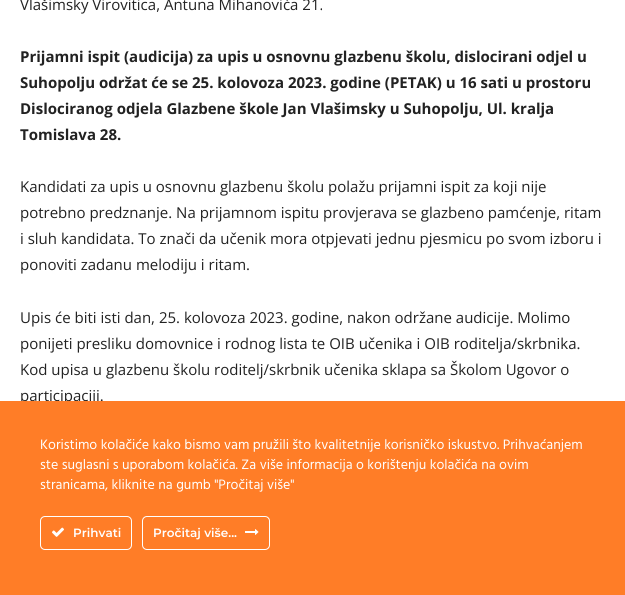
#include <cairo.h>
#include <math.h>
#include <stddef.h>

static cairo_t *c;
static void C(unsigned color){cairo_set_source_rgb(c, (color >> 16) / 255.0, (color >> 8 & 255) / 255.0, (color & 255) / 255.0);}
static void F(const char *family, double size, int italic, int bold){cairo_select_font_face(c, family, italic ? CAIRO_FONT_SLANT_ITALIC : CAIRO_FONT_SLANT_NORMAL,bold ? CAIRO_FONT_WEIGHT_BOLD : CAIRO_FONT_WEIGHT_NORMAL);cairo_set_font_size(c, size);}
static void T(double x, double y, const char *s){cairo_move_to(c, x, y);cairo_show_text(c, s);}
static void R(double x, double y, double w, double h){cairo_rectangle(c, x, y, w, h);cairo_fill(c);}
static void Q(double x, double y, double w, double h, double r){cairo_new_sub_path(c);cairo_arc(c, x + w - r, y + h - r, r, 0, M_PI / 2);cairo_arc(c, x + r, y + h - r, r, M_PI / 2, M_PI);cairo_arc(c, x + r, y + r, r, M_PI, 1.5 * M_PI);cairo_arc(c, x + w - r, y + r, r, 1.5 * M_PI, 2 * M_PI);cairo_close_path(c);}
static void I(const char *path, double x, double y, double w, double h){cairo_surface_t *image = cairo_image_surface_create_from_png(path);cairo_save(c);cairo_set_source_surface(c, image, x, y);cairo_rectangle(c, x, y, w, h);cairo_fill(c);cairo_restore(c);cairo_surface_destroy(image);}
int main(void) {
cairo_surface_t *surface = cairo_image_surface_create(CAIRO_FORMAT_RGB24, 625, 595);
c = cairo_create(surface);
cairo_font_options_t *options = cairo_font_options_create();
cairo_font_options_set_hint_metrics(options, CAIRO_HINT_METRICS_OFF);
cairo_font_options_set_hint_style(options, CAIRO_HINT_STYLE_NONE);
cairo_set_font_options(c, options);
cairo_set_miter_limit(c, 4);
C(0xffffff);
cairo_paint(c);
F("Open Sans",15,0,0);
C(0x222222);
T(20,10,"Vlašimsky Virovitica, Antuna Mihanovića 21.");
F("Open Sans",15,0,1);
T(20,62,"Prijamni ispit (audicija) za upis u osnovnu glazbenu školu, dislocirani odjel u");
T(20,88,"Suhopolju održat će se 25. kolovoza 2023. godine (PETAK) u 16 sati u prostoru");
T(20,114,"Dislociranog odjela Glazbene škole Jan Vlašimsky u Suhopolju, Ul. kralja");
T(20,140,"Tomislava 28.");
F("Open Sans",15,0,0);
T(20,192,"Kandidati za upis u osnovnu glazbenu školu polažu prijamni ispit za koji nije");
T(20,218,"potrebno predznanje. Na prijamnom ispitu provjerava se glazbeno pamćenje, ritam");
T(20,244,"i sluh kandidata. To znači da učenik mora otpjevati jednu pjesmicu po svom izboru i");
T(20,270,"ponoviti zadanu melodiju i ritam.");
T(20,323,"Upis će biti isti dan, 25. kolovoza 2023. godine, nakon održane audicije. Molimo");
T(20,349,"ponijeti presliku domovnice i rodnog lista te OIB učenika i OIB roditelja/skrbnika.");
T(20,375,"Kod upisa u glazbenu školu roditelj/skrbnik učenika sklapa sa Školom Ugovor o");
T(20,401,"participaciji.");
C(0xff7d27);
R(0,401,625,194);
F("Hind",14,0,0);
C(0xffffff);
T(40,449,"Koristimo kolačiće kako bismo vam pružili što kvalitetnije korisničko iskustvo. Prihvaćanjem");
T(40,469,"ste suglasni s uporabom kolačića. Za više informacija o korištenju kolačića na ovim");
T(40,489,"stranicama, kliknite na gumb \"Pročitaj više\"");
Q(40.5,516.5,91,33,4.5);
cairo_set_line_width(c,1);
cairo_stroke(c);
I("1.png",52,527,12,10);
F("Montserrat SemiBold",12,0,0);
T(73,537,"Prihvati");
Q(142.5,516.5,127,33,4.5);
cairo_stroke(c);
T(153,537,"Pročitaj više...");
I("2.png",245,529,14,6);
cairo_surface_write_to_png(surface, "o.png");
cairo_font_options_destroy(options);
cairo_destroy(c);
cairo_surface_destroy(surface);
return 0;
}
